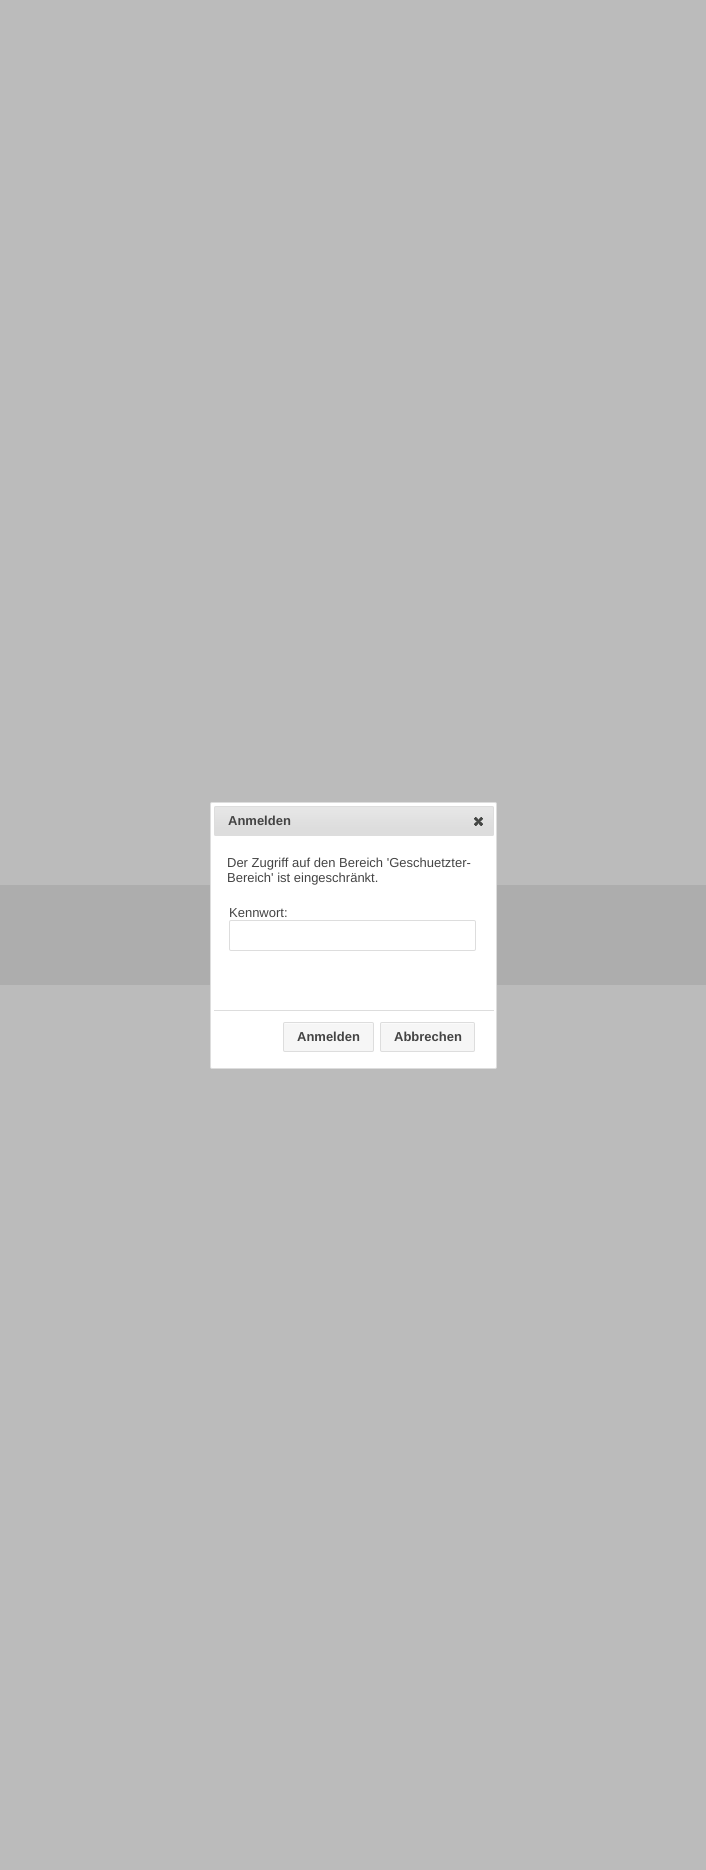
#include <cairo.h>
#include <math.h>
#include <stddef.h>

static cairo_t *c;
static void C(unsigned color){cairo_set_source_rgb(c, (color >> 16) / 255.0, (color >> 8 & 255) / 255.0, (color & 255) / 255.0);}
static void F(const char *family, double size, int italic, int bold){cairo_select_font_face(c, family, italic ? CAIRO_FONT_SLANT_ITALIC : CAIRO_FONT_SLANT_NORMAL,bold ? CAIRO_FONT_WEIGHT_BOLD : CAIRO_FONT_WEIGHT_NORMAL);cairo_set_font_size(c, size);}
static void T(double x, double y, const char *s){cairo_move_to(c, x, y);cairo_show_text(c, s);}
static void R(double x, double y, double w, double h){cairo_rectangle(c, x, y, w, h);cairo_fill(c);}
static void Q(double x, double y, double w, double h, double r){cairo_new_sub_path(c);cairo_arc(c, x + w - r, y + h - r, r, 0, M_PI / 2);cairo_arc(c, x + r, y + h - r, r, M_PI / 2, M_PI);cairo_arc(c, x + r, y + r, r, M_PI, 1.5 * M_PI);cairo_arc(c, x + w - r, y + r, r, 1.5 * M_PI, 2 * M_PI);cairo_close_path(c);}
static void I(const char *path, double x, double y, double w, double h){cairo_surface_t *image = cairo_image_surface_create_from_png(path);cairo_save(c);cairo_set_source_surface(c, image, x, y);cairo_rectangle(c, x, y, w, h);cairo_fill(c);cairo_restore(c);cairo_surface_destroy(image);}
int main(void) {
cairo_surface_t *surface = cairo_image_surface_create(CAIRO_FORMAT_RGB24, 706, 1870);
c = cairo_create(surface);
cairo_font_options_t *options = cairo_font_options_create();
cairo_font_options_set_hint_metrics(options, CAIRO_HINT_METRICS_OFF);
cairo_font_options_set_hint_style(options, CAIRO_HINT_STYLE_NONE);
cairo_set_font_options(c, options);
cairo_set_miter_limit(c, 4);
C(0xbbbbbb);
cairo_paint(c);
C(0xadadad);
R(0,885,706,100);
C(0xffffff);
Q(210.5,802.5,286,266,1.5);
cairo_fill_preserve(c);
C(0xdddddd);
cairo_set_line_width(c,1);
cairo_stroke(c);
I("1.png",214,806,280,30);
Q(214.5,806.5,279,29,1.5);
cairo_stroke(c);
F("Liberation Sans",13,0,1);
C(0x444444);
T(228,825,"Anmelden");
I("2.png",474,817,9,9);
F("Liberation Sans",13,0,0);
T(227,867,"Der Zugriff auf den Bereich 'Geschuetzter-");
T(227,882,"Bereich' ist eingeschränkt.");
T(229,917,"Kennwort:");
Q(229.5,920.5,246,30,1.5);
C(0xdddddd);
cairo_stroke(c);
R(214,1010,280,1);
C(0xf6f6f6);
Q(283,1022,91,30,2);
cairo_fill(c);
I("3.png",284,1022,89,2);
Q(283.5,1022.5,90,29,1.5);
C(0xdddddd);
cairo_stroke(c);
F("Liberation Sans",13,0,1);
C(0x444444);
T(297,1041,"Anmelden");
C(0xf6f6f6);
Q(380,1022,95,30,2);
cairo_fill(c);
I("4.png",381,1022,93,2);
Q(380.5,1022.5,94,29,1.5);
C(0xdddddd);
cairo_stroke(c);
C(0x444444);
T(394,1041,"Abbrechen");
cairo_surface_write_to_png(surface, "o.png");
cairo_font_options_destroy(options);
cairo_destroy(c);
cairo_surface_destroy(surface);
return 0;
}
